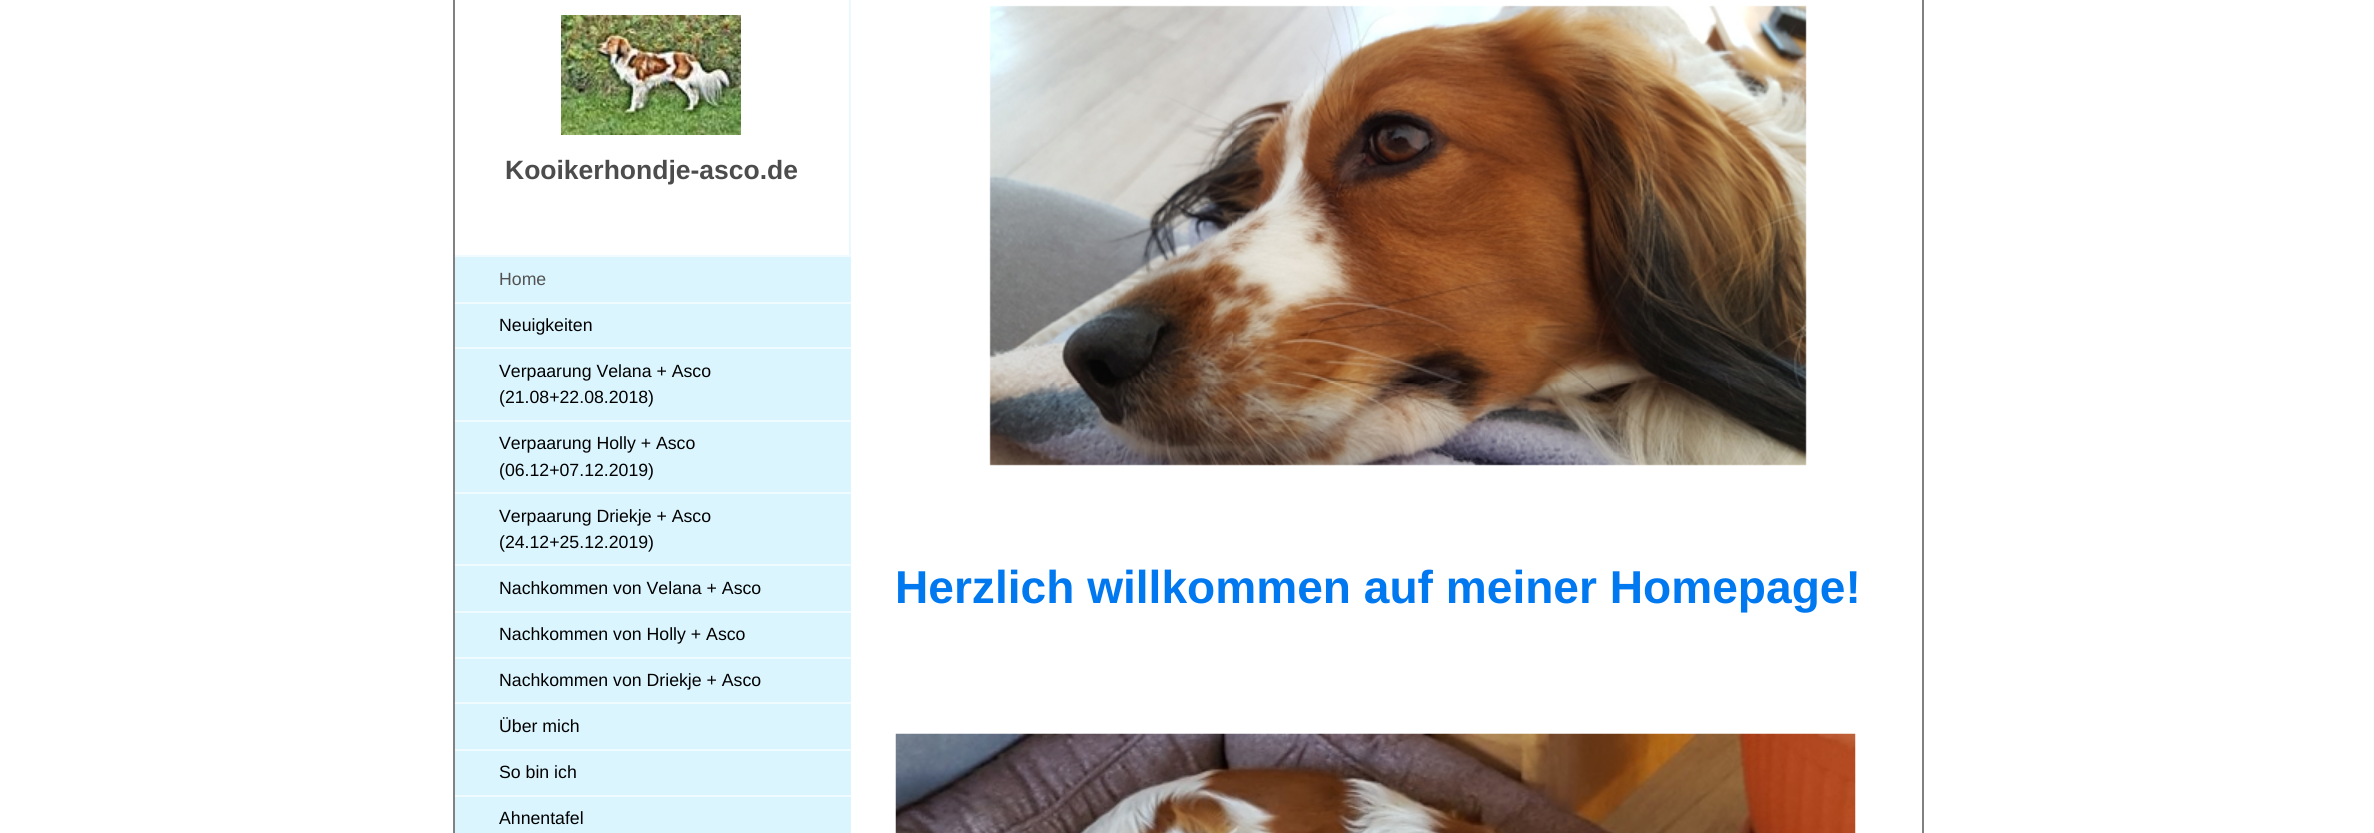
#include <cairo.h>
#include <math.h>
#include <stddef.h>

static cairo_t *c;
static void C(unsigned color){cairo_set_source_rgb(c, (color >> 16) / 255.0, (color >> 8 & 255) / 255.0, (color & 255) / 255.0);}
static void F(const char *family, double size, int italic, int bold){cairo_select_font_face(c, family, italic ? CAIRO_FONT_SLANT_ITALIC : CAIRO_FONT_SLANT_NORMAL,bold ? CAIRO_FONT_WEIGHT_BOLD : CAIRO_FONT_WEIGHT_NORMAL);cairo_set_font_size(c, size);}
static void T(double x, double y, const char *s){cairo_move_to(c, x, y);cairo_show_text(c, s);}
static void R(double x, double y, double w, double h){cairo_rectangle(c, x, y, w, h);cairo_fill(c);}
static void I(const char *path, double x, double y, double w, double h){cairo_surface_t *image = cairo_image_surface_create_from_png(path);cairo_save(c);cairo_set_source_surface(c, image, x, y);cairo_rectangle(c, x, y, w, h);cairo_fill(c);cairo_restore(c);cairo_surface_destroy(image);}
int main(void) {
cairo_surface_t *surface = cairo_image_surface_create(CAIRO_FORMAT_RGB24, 2374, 833);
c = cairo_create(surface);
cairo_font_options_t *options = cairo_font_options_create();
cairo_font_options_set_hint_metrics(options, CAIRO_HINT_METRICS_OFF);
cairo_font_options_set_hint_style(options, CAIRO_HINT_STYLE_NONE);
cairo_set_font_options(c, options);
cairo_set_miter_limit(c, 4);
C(0xffffff);
cairo_paint(c);
C(0x818181);
R(1922,0,2,833);
R(453,0,2,833);
C(0xeaf9fe);
R(849,0,2,255);
I("1.png",561,15,180,120);
F("Liberation Sans",26.5,0,1);
C(0x4c4c4c);
T(505,179,"Kooikerhondje-asco.de");
C(0xdaf5fe);
R(455,257,396,45);
C(0xf0fbff);
R(455,255,396,2);
F("Liberation Sans",17.7,0,0);
C(0x525252);
T(499,285,"Home");
C(0xdaf5fe);
R(455,304,396,43);
C(0xf0fbff);
R(455,302,396,2);
C(0x000000);
T(499,331,"Neuigkeiten");
C(0xdaf5fe);
R(455,349,396,71);
C(0xf0fbff);
R(455,347,396,2);
C(0x000000);
T(499,377,"Verpaarung Velana + Asco");
T(499,403,"(21.08+22.08.2018)");
C(0xdaf5fe);
R(455,422,396,70);
C(0xf0fbff);
R(455,420,396,2);
C(0x000000);
T(499,449,"Verpaarung Holly + Asco");
T(499,476,"(06.12+07.12.2019)");
C(0xdaf5fe);
R(455,494,396,70);
C(0xf0fbff);
R(455,492,396,2);
C(0x000000);
T(499,522,"Verpaarung Driekje + Asco");
T(499,548,"(24.12+25.12.2019)");
C(0xdaf5fe);
R(455,566,396,45);
C(0xf0fbff);
R(455,564,396,2);
C(0x000000);
T(499,594,"Nachkommen von Velana + Asco");
C(0xdaf5fe);
R(455,613,396,44);
C(0xf0fbff);
R(455,611,396,2);
C(0x000000);
T(499,640,"Nachkommen von Holly + Asco");
C(0xdaf5fe);
R(455,659,396,43);
C(0xf0fbff);
R(455,657,396,2);
C(0x000000);
T(499,686,"Nachkommen von Driekje + Asco");
C(0xdaf5fe);
R(455,704,396,45);
C(0xf0fbff);
R(455,702,396,2);
C(0x000000);
T(499,732,"Über mich");
C(0xdaf5fe);
R(455,751,396,44);
C(0xf0fbff);
R(455,749,396,2);
C(0x000000);
T(499,778,"So bin ich");
C(0xdaf5fe);
R(455,797,396,36);
C(0xf0fbff);
R(455,795,396,2);
C(0x000000);
T(499,824,"Ahnentafel");
I("2.png",989,5,818,461);
F("Liberation Sans",46.1,0,1);
C(0x0078f0);
T(895,603,"Herzlich willkommen auf meiner Homepage!");
I("3.png",895,733,961,100);
cairo_surface_write_to_png(surface, "o.png");
cairo_font_options_destroy(options);
cairo_destroy(c);
cairo_surface_destroy(surface);
return 0;
}
